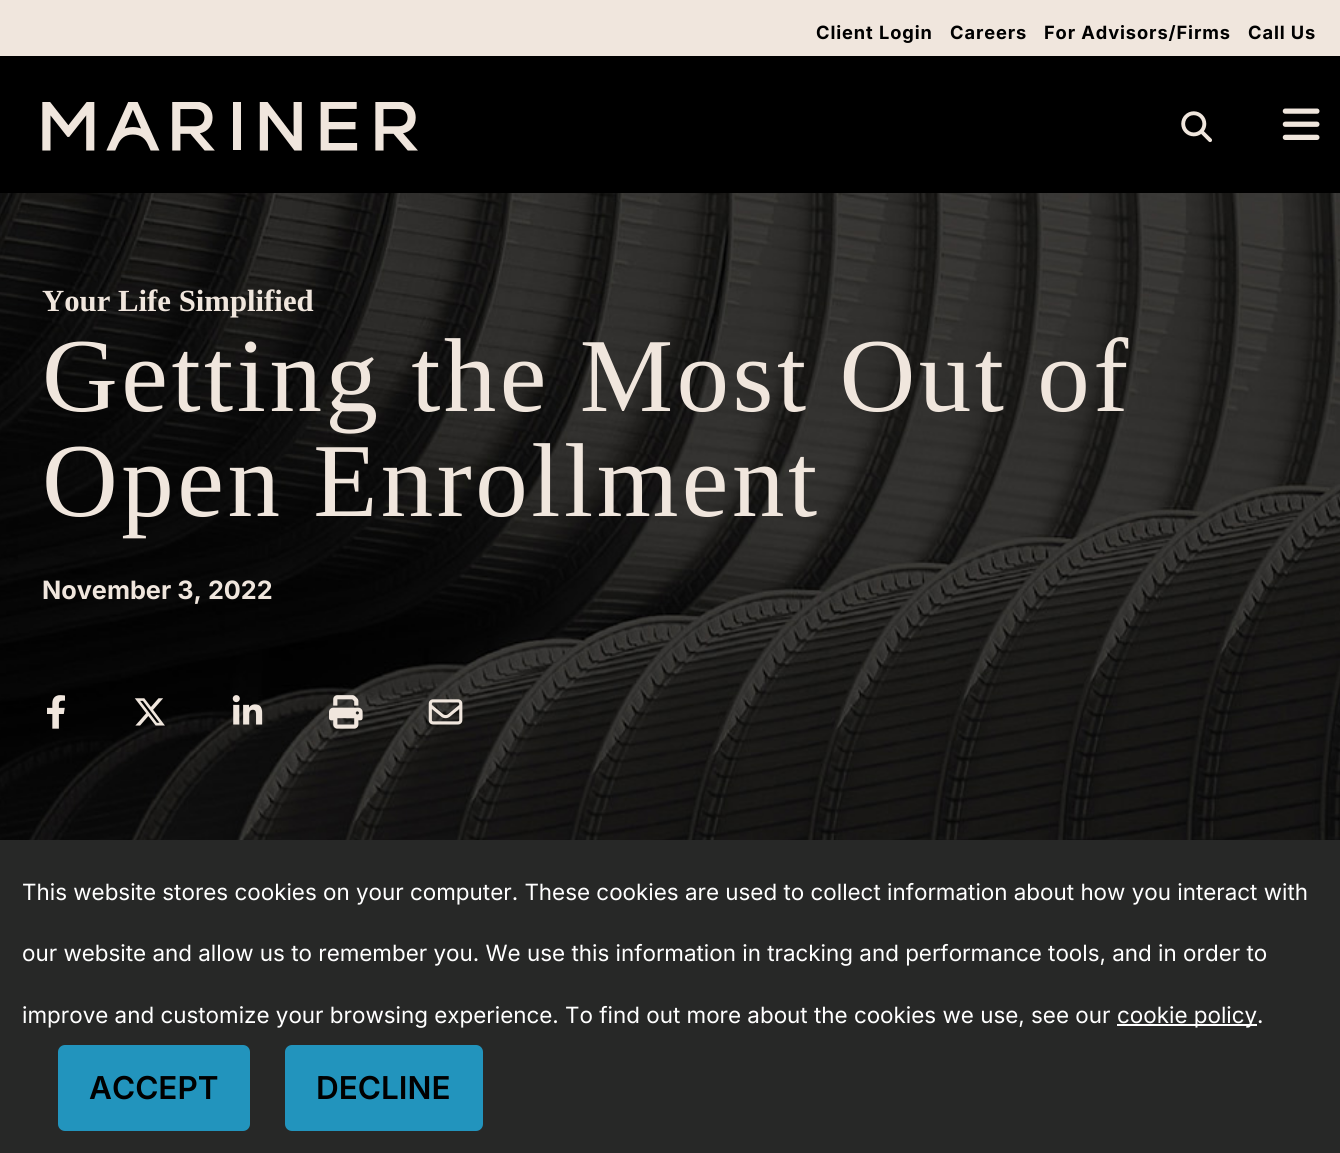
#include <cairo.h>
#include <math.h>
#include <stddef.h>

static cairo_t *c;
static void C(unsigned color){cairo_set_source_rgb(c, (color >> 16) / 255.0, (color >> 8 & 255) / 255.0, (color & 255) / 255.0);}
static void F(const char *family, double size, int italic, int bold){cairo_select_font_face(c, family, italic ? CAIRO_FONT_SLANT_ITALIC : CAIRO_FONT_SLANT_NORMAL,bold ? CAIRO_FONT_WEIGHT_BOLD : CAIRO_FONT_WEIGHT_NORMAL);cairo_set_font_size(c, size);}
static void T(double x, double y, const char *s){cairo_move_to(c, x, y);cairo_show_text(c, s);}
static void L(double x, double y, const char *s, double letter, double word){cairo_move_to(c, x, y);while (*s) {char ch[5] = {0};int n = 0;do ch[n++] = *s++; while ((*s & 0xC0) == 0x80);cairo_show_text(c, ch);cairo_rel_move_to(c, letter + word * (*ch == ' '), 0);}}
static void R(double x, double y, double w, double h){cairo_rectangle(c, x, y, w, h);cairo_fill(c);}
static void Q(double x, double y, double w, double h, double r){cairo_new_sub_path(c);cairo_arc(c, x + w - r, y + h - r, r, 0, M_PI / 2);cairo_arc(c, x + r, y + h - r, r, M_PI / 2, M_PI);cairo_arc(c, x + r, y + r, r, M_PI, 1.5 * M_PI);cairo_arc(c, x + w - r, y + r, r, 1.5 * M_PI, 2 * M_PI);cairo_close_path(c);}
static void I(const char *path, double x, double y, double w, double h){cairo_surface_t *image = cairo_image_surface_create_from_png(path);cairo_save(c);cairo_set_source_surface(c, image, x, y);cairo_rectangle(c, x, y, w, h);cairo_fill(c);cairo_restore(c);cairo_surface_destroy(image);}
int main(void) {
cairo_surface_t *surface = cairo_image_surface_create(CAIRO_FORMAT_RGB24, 1340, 1153);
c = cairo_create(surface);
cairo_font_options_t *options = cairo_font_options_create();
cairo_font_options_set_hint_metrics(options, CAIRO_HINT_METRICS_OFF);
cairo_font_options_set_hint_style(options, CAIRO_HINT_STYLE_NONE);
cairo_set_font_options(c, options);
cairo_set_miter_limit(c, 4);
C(0xffffff);
cairo_paint(c);
C(0x000000);
R(0,56,1340,137);
C(0xf0e6dd);
R(0,0,1340,56);
F("Inter",18.25,0,1);
C(0x000000);
L(816,39,"Client Login",.9,0);
L(950,39,"Careers",.9,0);
L(1044,39,"For Advisors/Firms",.9,0);
L(1248,39,"Call Us",.9,0);
I("1.png",42,102,376,49);
I("2.png",1181,111,31,32);
I("3.png",1282,108,38,32);
I("4.png",0,193,1340,647);
F("Liberation Serif",30.75,0,1);
C(0xf0e6dd);
T(42,311,"Your Life Simplified");
F("Liberation Serif",105,0,0);
L(42,411,"Getting the Most Out of",3.5,0);
L(42,516,"Open Enrollment",3.5,0);
F("Inter",25.25,0,1);
T(42,599,"November 3, 2022");
I("5.png",47,695,18,34);
I("6.png",134,698,31,28);
I("7.png",232,695,31,30);
I("8.png",329,695,34,34);
I("9.png",428,699,35,26);
C(0x272827);
R(0,840,1340,313);
F("Inter",22.4,0,0);
C(0xffffff);
T(22,900,"This website stores cookies on your computer. These cookies are used to collect information about how you interact with");
T(22,961,"our website and allow us to remember you. We use this information in tracking and performance tools, and in order to");
T(22,1023,"improve and customize your browsing experience. To find out more about the cookies we use, see our");
R(1117,1024,140,2);
T(1117,1023,"cookie policy.");
C(0x2294bd);
Q(58,1045,192,86,7);
cairo_fill(c);
F("Inter SemiBold",31.5,0,0);
C(0x000000);
T(89,1099,"ACCEPT");
C(0x2294bd);
Q(285,1045,198,86,7);
cairo_fill(c);
C(0x000000);
T(316,1099,"DECLINE");
cairo_surface_write_to_png(surface, "o.png");
cairo_font_options_destroy(options);
cairo_destroy(c);
cairo_surface_destroy(surface);
return 0;
}
